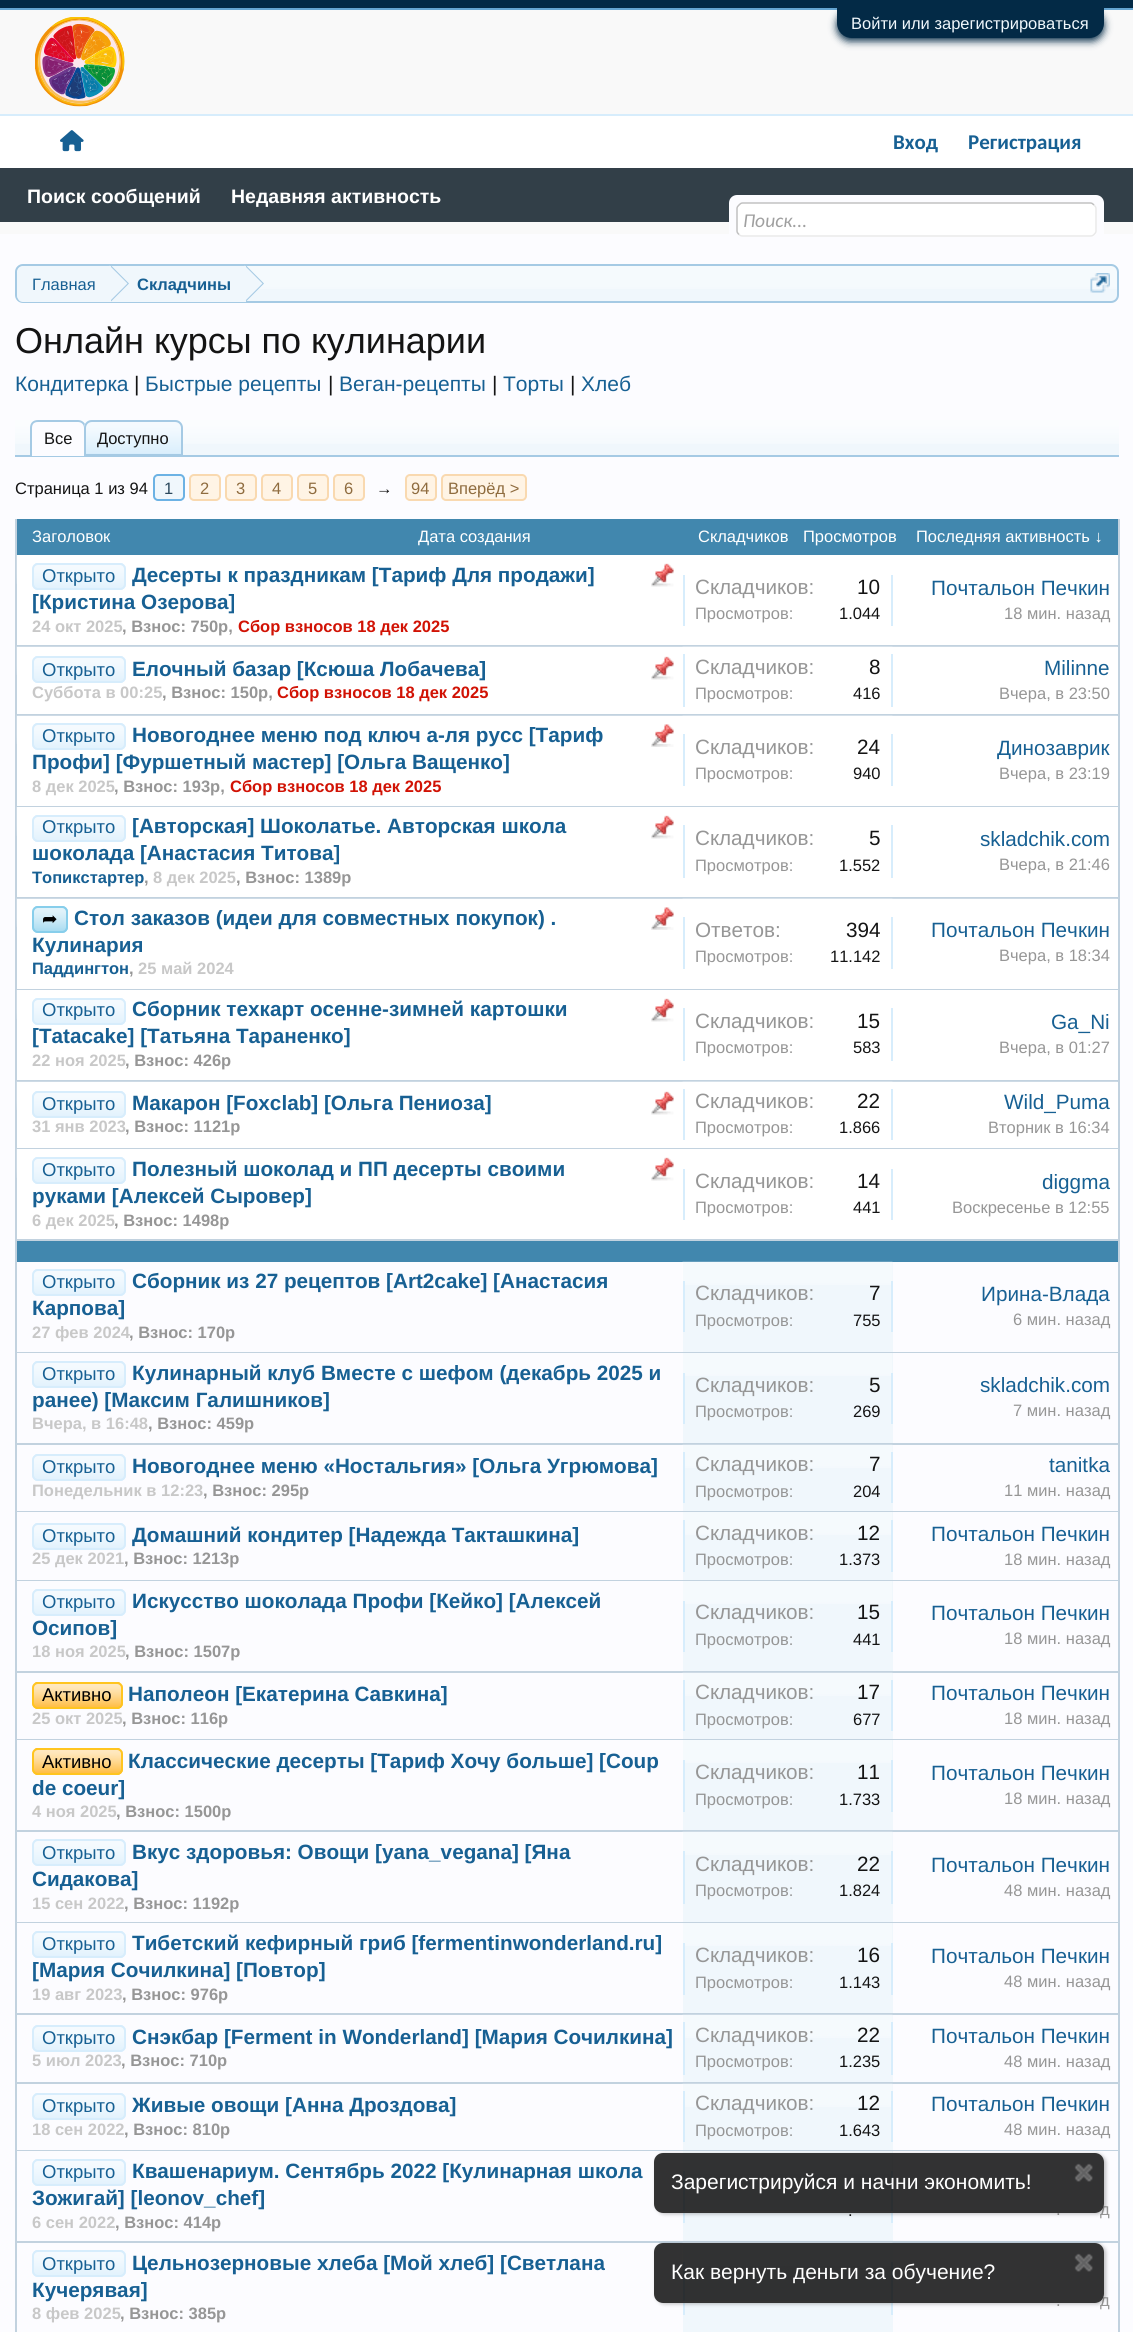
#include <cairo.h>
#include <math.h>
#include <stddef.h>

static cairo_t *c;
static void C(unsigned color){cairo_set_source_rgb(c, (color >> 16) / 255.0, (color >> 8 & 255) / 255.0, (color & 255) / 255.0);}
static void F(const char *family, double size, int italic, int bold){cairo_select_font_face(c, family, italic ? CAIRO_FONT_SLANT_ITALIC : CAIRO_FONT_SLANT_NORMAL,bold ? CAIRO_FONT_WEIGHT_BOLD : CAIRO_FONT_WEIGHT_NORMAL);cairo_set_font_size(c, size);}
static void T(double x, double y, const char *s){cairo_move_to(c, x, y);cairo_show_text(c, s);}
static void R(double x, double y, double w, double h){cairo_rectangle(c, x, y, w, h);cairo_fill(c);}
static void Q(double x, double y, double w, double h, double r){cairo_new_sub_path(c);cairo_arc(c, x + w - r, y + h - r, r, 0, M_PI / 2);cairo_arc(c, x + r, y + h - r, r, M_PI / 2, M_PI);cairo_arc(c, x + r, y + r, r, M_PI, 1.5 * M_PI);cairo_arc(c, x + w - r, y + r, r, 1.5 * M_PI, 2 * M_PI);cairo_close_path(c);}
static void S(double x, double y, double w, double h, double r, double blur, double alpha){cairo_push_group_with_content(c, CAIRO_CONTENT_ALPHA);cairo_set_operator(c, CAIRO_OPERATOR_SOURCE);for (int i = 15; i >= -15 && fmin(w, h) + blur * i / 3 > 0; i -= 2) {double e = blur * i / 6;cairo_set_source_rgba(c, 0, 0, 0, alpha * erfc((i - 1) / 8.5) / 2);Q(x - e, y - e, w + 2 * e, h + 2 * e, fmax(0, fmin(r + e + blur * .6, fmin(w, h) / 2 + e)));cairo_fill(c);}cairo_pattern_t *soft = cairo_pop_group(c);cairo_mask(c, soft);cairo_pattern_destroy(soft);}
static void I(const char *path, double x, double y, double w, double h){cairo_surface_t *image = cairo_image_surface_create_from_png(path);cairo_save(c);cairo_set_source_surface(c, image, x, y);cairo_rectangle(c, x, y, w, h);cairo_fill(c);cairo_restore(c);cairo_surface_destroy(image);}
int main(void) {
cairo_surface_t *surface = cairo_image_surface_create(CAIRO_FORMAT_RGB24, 1133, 2332);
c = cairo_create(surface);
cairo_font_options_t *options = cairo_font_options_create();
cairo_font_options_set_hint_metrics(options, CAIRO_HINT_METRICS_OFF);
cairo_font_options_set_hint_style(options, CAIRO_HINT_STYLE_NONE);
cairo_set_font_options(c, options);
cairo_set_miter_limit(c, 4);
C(0xf9f9f9);
cairo_paint(c);
C(0x032a46);
R(0,0,1133,8);
C(0x65a5d1);
R(0,8,1133,2);
C(0x032a46);
S(837,11,267,30,15,4,1);
C(0x032a46);
cairo_new_path(c);
cairo_move_to(c,837,8);
cairo_line_to(c,1104,8);
cairo_line_to(c,1104,23);
cairo_curve_to(c,1104,31.5,1097.5,38,1089,38);
cairo_line_to(c,852,38);
cairo_curve_to(c,843.5,38,837,31.5,837,23);
cairo_close_path(c);
cairo_fill(c);
F("Liberation Sans",16.5,0,0);
C(0xf0f7fc);
T(851,29,"Войти или зарегистрироваться");
I("1.png",35,17,90,90);
C(0x323f48);
R(0,168,1133,54);
C(0xffffff);
R(0,116,1133,52);
C(0xd7edfc);
R(0,114,1133,2);
F("Carlito",21,0,1);
C(0x176093);
T(893,149,"Вход");
T(968,149,"Регистрация");
I("2.png",60,130,24,22);
F("Liberation Sans",19.5,0,1);
C(0xffffff);
T(27,203,"Поиск сообщений");
T(231,203,"Недавняя активность");
C(0xfcfcff);
R(0,234,1133,2098);
Q(729,195,375,42,8);
cairo_fill(c);
R(729,231,375,3);
C(0xffffff);
Q(737,203,360,34,6);
cairo_fill(c);
cairo_new_path(c);
cairo_move_to(c,1094,205);
cairo_curve_to(c,1095,206,1096,207,1096,208.5);
cairo_line_to(c,1096,231);
cairo_curve_to(c,1096,232.5,1095,233.5,1094,234.5);
cairo_curve_to(c,1093,235.5,1092,236,1090.5,236);
cairo_line_to(c,742.5,236);
cairo_curve_to(c,741,236,740,235.5,739,234.5);
C(0xe9e9e9);
cairo_set_line_width(c,1.5);
cairo_stroke(c);
cairo_new_path(c);
cairo_move_to(c,739,234.5);
cairo_curve_to(c,738,233.5,737,232.5,737,231);
cairo_line_to(c,737,208.5);
cairo_curve_to(c,737,207,738,206,739,205);
cairo_curve_to(c,740,204,741,203,742.5,203);
cairo_line_to(c,1090.5,203);
cairo_curve_to(c,1092,203,1093,204,1094,205);
C(0xc0c0c0);
cairo_stroke(c);
F("Carlito",19.5,1,0);
C(0xa0a0a0);
T(743,227,"Поиск...");
C(0xf0f7fc);
Q(15,264,1104,39,8);
cairo_fill(c);
I("3.png",15,266,1104,23);
Q(16,265,1102,37,7);
C(0xa5cae4);
cairo_set_line_width(c,2);
cairo_stroke(c);
cairo_save(c);
Q(17,266,1101,36,6);
cairo_clip(c);
C(0xf0f7fc);
cairo_new_path(c);
cairo_move_to(c,25,266);
cairo_line_to(c,111,266);
cairo_line_to(c,111,303);
cairo_line_to(c,25,303);
cairo_curve_to(c,20.5,303,17,299.5,17,295);
cairo_line_to(c,17,274);
cairo_curve_to(c,17,269.5,20.5,266,25,266);
cairo_close_path(c);
cairo_fill(c);
cairo_restore(c);
F("Liberation Sans",16.5,0,0);
C(0x176093);
T(32,290,"Главная");
C(0xf0f7fc);
R(111,266,135,36);
C(0xa5cae4);
cairo_new_path(c);
cairo_move_to(c,111,301.5);
cairo_line_to(c,111,265.5);
cairo_line_to(c,129,283.5);
cairo_close_path(c);
cairo_fill(c);
C(0xf0f7fc);
cairo_new_path(c);
cairo_move_to(c,109.5,301.5);
cairo_line_to(c,109.5,265.5);
cairo_line_to(c,127.5,283.5);
cairo_close_path(c);
cairo_fill(c);
F("Liberation Sans",16.5,0,1);
C(0x176093);
T(137,290,"Складчины");
C(0xa5cae4);
cairo_new_path(c);
cairo_move_to(c,246,301.5);
cairo_line_to(c,246,265.5);
cairo_line_to(c,264,283.5);
cairo_close_path(c);
cairo_fill(c);
C(0xf0f7fc);
cairo_new_path(c);
cairo_move_to(c,244.5,301.5);
cairo_line_to(c,244.5,265.5);
cairo_line_to(c,262.5,283.5);
cairo_close_path(c);
cairo_fill(c);
I("4.png",1090,273,20,20);
F("Liberation Sans",36,0,0);
C(0x141414);
T(15,353,"Онлайн курсы по кулинарии");
F("Liberation Sans",21,0,0);
C(0x176093);
T(15,391,"Кондитерка");
C(0x141414);
T(134,391,"|");
C(0x176093);
T(145,391,"Быстрые рецепты");
C(0x141414);
T(328,391,"|");
C(0x176093);
T(339,391,"Веган-рецепты");
C(0x141414);
T(492,391,"|");
C(0x176093);
T(503,391,"Торты");
C(0x141414);
T(570,391,"|");
C(0x176093);
T(581,391,"Хлеб");
C(0xf0f7fc);
R(15,420,1104,35);
I("5.png",15,420,1104,24);
C(0xa5cae4);
R(15,455,1104,2);
C(0xfcfcff);
cairo_new_path(c);
cairo_move_to(c,38,420);
cairo_line_to(c,78,420);
cairo_curve_to(c,82.5,420,86,423.5,86,428);
cairo_line_to(c,86,456);
cairo_line_to(c,30,456);
cairo_line_to(c,30,428);
cairo_curve_to(c,30,423.5,33.5,420,38,420);
cairo_close_path(c);
cairo_fill(c);
C(0xa5cae4);
cairo_set_fill_rule(c,CAIRO_FILL_RULE_EVEN_ODD);
cairo_new_path(c);
cairo_move_to(c,38,420);
cairo_line_to(c,78,420);
cairo_curve_to(c,82,420,86,423,86,428);
cairo_line_to(c,86,456);
cairo_line_to(c,30,456);
cairo_line_to(c,30,428);
cairo_curve_to(c,30,423,33,420,38,420);
cairo_close_path(c);
cairo_move_to(c,38,422);
cairo_line_to(c,78,422);
cairo_curve_to(c,81,422,84,424,84,428);
cairo_line_to(c,84,456);
cairo_line_to(c,32,456);
cairo_line_to(c,32,428);
cairo_curve_to(c,32,424,34,422,38,422);
cairo_close_path(c);
cairo_fill(c);
F("Liberation Sans",16.5,0,0);
C(0x141414);
T(44,444,"Все");
C(0xd7edfc);
cairo_new_path(c);
cairo_move_to(c,92,420);
cairo_line_to(c,175,420);
cairo_curve_to(c,179.5,420,183,423.5,183,428);
cairo_line_to(c,183,456);
cairo_line_to(c,84,456);
cairo_line_to(c,84,428);
cairo_curve_to(c,84,423.5,87.5,420,92,420);
cairo_close_path(c);
cairo_fill(c);
I("6.png",84,421,99,32);
cairo_new_path(c);
cairo_move_to(c,92,421);
cairo_line_to(c,175,421);
cairo_curve_to(c,179,421,182,424,182,428);
cairo_line_to(c,182,455);
cairo_line_to(c,85,455);
cairo_line_to(c,85,428);
cairo_curve_to(c,85,424,88,421,92,421);
cairo_close_path(c);
C(0xa5cae4);
cairo_stroke(c);
C(0x141414);
T(97,444,"Доступно");
T(15,494,"Страница 1 из 94");
C(0xf0f7fc);
Q(154,475,30,25,4);
cairo_fill_preserve(c);
C(0x6cb2e4);
cairo_stroke(c);
C(0x2b485c);
T(164,494,"1");
C(0xfff4e5);
Q(190,475,30,25,4);
cairo_fill_preserve(c);
C(0xf9d9b0);
cairo_stroke(c);
C(0x8f6c3f);
T(200,494,"2");
C(0xfff4e5);
Q(226,475,30,25,4);
cairo_fill_preserve(c);
C(0xf9d9b0);
cairo_stroke(c);
C(0x8f6c3f);
T(236,494,"3");
C(0xfff4e5);
Q(262,475,30,25,4);
cairo_fill_preserve(c);
C(0xf9d9b0);
cairo_stroke(c);
C(0x8f6c3f);
T(272,494,"4");
C(0xfff4e5);
Q(298,475,30,25,4);
cairo_fill_preserve(c);
C(0xf9d9b0);
cairo_stroke(c);
C(0x8f6c3f);
T(308,494,"5");
C(0xfff4e5);
Q(334,475,30,25,4);
cairo_fill_preserve(c);
C(0xf9d9b0);
cairo_stroke(c);
C(0x8f6c3f);
T(344,494,"6");
C(0x141414);
T(376,494,"→");
C(0xfff4e5);
Q(406,475,30,25,4);
cairo_fill_preserve(c);
C(0xf9d9b0);
cairo_stroke(c);
C(0x8f6c3f);
T(411,494,"94");
C(0xfff4e5);
Q(442,475,84,25,4);
cairo_fill_preserve(c);
C(0xf9d9b0);
cairo_stroke(c);
C(0x8f6c3f);
T(448,494,"Вперёд >");
C(0xc2d2df);
R(1118,519,2,1813);
R(15,519,2,1813);
C(0x4187ae);
R(17,519,1101,36);
C(0xffffff);
T(32,542,"Заголовок");
T(418,542,"Дата создания");
T(698,542,"Складчиков");
T(803,542,"Просмотров");
T(916,542,"Последняя активность ↓");
R(17,555,1101,90);
I("7.png",16,555,1,29);
C(0xc2d2df);
R(17,645,1101,2);
C(0xd7edfc);
Q(32,563,94,27,6);
cairo_fill(c);
I("8.png",32,564,94,25);
Q(33,564,92,25,5);
cairo_stroke(c);
F("Liberation Sans",18.5,0,0);
C(0x176093);
T(42,582,"Открыто");
F("Liberation Sans",20.7,0,1);
T(132,582,"Десерты к праздникам [Тариф Для продажи]");
T(32,609,"[Кристина Озерова]");
I("9.png",651,563,23,24);
F("Liberation Sans",16.5,0,1);
C(0xc8c8c8);
T(32,632,"24 окт 2025");
C(0x969696);
T(122,632,", Взнос: 750р,");
C(0xd11204);
T(238,632,"Сбор взносов 18 дек 2025");
C(0xd7edfc);
R(891,575,2,51);
R(683,575,2,51);
F("Liberation Sans",20.7,0,0);
C(0x969696);
T(695,594,"Складчиков:");
C(0x141414);
T(857,594,"10");
F("Liberation Sans",16.5,0,0);
C(0x969696);
T(695,619,"Просмотров:");
C(0x141414);
T(839,619,"1.044");
F("Liberation Sans",20.7,0,0);
C(0x176093);
T(931,595,"Почтальон Печкин");
F("Liberation Sans",16.5,0,0);
C(0x969696);
T(1004,619,"18 мин. назад");
C(0xffffff);
R(17,647,1101,67);
I("10.png",16,646,1102,29);
C(0xc2d2df);
R(17,714,1101,2);
C(0xd7edfc);
Q(32,656,94,27,6);
cairo_fill(c);
I("11.png",32,657,94,25);
Q(33,657,92,25,5);
cairo_stroke(c);
F("Liberation Sans",18.5,0,0);
C(0x176093);
T(42,676,"Открыто");
F("Liberation Sans",20.7,0,1);
T(132,676,"Елочный базар [Ксюша Лобачева]");
I("9.png",651,656,23,24);
F("Liberation Sans",16.5,0,1);
C(0xc8c8c8);
T(32,698,"Суббота в 00:25");
C(0x969696);
T(162,698,", Взнос: 150р,");
C(0xd11204);
T(277,698,"Сбор взносов 18 дек 2025");
I("12.png",682,646,211,1);
C(0xd7edfc);
R(891,654,2,53);
R(683,654,2,53);
F("Liberation Sans",20.7,0,0);
C(0x969696);
T(695,674,"Складчиков:");
C(0x141414);
T(869,674,"8");
F("Liberation Sans",16.5,0,0);
C(0x969696);
T(695,699,"Просмотров:");
C(0x141414);
T(853,699,"416");
F("Liberation Sans",20.7,0,0);
C(0x176093);
T(1044,675,"Milinne");
F("Liberation Sans",16.5,0,0);
C(0x969696);
T(999,699,"Вчера, в 23:50");
C(0xffffff);
R(17,716,1101,90);
I("13.png",16,715,1102,29);
C(0xc2d2df);
R(17,806,1101,1);
C(0xd7edfc);
Q(32,723,94,27,6);
cairo_fill(c);
I("14.png",32,724,94,26);
Q(33,724,92,25,5);
cairo_stroke(c);
F("Liberation Sans",18.5,0,0);
C(0x176093);
T(42,742,"Открыто");
F("Liberation Sans",20.7,0,1);
T(132,742,"Новогоднее меню под ключ а-ля русс [Тариф");
T(32,769,"Профи] [Фуршетный мастер] [Ольга Ващенко]");
I("15.png",651,724,23,23);
F("Liberation Sans",16.5,0,1);
C(0xc8c8c8);
T(32,792,"8 дек 2025");
C(0x969696);
T(114,792,", Взнос: 193р,");
C(0xd11204);
T(230,792,"Сбор взносов 18 дек 2025");
I("12.png",682,715,211,1);
C(0xd7edfc);
R(891,734,2,52);
R(683,734,2,52);
F("Liberation Sans",20.7,0,0);
C(0x969696);
T(695,754,"Складчиков:");
C(0x141414);
T(857,754,"24");
F("Liberation Sans",16.5,0,0);
C(0x969696);
T(695,779,"Просмотров:");
C(0x141414);
T(853,779,"940");
F("Liberation Sans",20.7,0,0);
C(0x176093);
T(997,755,"Динозаврик");
F("Liberation Sans",16.5,0,0);
C(0x969696);
T(999,779,"Вчера, в 23:19");
C(0xffffff);
R(17,807,1101,90);
I("7.png",16,807,1,29);
C(0xc2d2df);
R(17,897,1101,2);
C(0xd7edfc);
Q(32,815,94,27,6);
cairo_fill(c);
I("16.png",32,816,94,25);
Q(33,816,92,25,5);
cairo_stroke(c);
F("Liberation Sans",18.5,0,0);
C(0x176093);
T(42,833,"Открыто");
F("Liberation Sans",20.7,0,1);
T(132,833,"[Авторская] Шоколатье. Авторская школа");
T(32,860,"шоколада [Анастасия Титова]");
I("9.png",651,815,23,24);
F("Liberation Sans",16.5,0,1);
T(32,883,"Топикстартер");
C(0x969696);
T(144,883,",");
C(0xc8c8c8);
T(153,883,"8 дек 2025");
C(0x969696);
T(236,883,", Взнос: 1389р");
C(0xd7edfc);
R(891,825,2,53);
R(683,825,2,53);
F("Liberation Sans",20.7,0,0);
C(0x969696);
T(695,845,"Складчиков:");
C(0x141414);
T(869,845,"5");
F("Liberation Sans",16.5,0,0);
C(0x969696);
T(695,871,"Просмотров:");
C(0x141414);
T(839,871,"1.552");
F("Liberation Sans",20.7,0,0);
C(0x176093);
T(980,846,"skladchik.com");
F("Liberation Sans",16.5,0,0);
C(0x969696);
T(999,870,"Вчера, в 21:46");
C(0xffffff);
R(17,899,1101,90);
I("17.png",16,898,1102,29);
C(0xc2d2df);
R(17,989,1101,1);
C(0x87ceeb);
Q(32,906,36,27,6);
cairo_fill(c);
I("18.png",32,907,36,26);
Q(33,907,34,25,5);
cairo_stroke(c);
F("DejaVu Sans",18.5,0,0);
C(0x000000);
T(42,925,"➦");
F("Liberation Sans",20.7,0,1);
C(0x176093);
T(74,925,"Стол заказов (идеи для совместных покупок) .");
T(32,952,"Кулинария");
I("15.png",651,907,23,23);
F("Liberation Sans",16.5,0,1);
T(32,974,"Паддингтон");
C(0x969696);
T(129,974,",");
C(0xc8c8c8);
T(138,974,"25 май 2024");
I("12.png",682,898,211,1);
C(0xd7edfc);
R(891,917,2,52);
R(683,917,2,52);
F("Liberation Sans",20.7,0,0);
C(0x969696);
T(695,937,"Ответов:");
C(0x141414);
T(846,937,"394");
F("Liberation Sans",16.5,0,0);
C(0x969696);
T(695,962,"Просмотров:");
C(0x141414);
T(830,962,"11.142");
F("Liberation Sans",20.7,0,0);
C(0x176093);
T(931,937,"Почтальон Печкин");
F("Liberation Sans",16.5,0,0);
C(0x969696);
T(999,961,"Вчера, в 18:34");
C(0xffffff);
R(17,990,1101,90);
I("7.png",16,990,1,29);
C(0xc2d2df);
R(17,1080,1101,2);
C(0xd7edfc);
Q(32,998,94,27,6);
cairo_fill(c);
I("19.png",32,999,94,25);
Q(33,999,92,25,5);
cairo_stroke(c);
F("Liberation Sans",18.5,0,0);
C(0x176093);
T(42,1016,"Открыто");
F("Liberation Sans",20.7,0,1);
T(132,1016,"Сборник техкарт осенне-зимней картошки");
T(32,1043,"[Tatacake] [Татьяна Тараненко]");
I("9.png",651,998,23,24);
F("Liberation Sans",16.5,0,1);
C(0xc8c8c8);
T(32,1066,"22 ноя 2025");
C(0x969696);
T(125,1066,", Взнос: 426р");
C(0xd7edfc);
R(891,1008,2,53);
R(683,1008,2,53);
F("Liberation Sans",20.7,0,0);
C(0x969696);
T(695,1028,"Складчиков:");
C(0x141414);
T(857,1028,"15");
F("Liberation Sans",16.5,0,0);
C(0x969696);
T(695,1053,"Просмотров:");
C(0x141414);
T(853,1053,"583");
F("Liberation Sans",20.7,0,0);
C(0x176093);
T(1051,1029,"Ga_Ni");
F("Liberation Sans",16.5,0,0);
C(0x969696);
T(999,1053,"Вчера, в 01:27");
C(0xffffff);
R(17,1082,1101,66);
I("10.png",16,1081,1102,29);
C(0xc2d2df);
R(17,1148,1101,1);
C(0xd7edfc);
Q(32,1091,94,27,6);
cairo_fill(c);
I("11.png",32,1092,94,25);
Q(33,1092,92,25,5);
cairo_stroke(c);
F("Liberation Sans",18.5,0,0);
C(0x176093);
T(42,1110,"Открыто");
F("Liberation Sans",20.7,0,1);
T(132,1110,"Макарон [Foxclab] [Ольга Пениоза]");
I("9.png",651,1091,23,24);
F("Liberation Sans",16.5,0,1);
C(0xc8c8c8);
T(32,1132,"31 янв 2023");
C(0x969696);
T(125,1132,", Взнос: 1121р");
I("12.png",682,1081,211,1);
C(0xd7edfc);
R(891,1089,2,51);
R(683,1089,2,51);
F("Liberation Sans",20.7,0,0);
C(0x969696);
T(695,1108,"Складчиков:");
C(0x141414);
T(857,1108,"22");
F("Liberation Sans",16.5,0,0);
C(0x969696);
T(695,1133,"Просмотров:");
C(0x141414);
T(839,1133,"1.866");
F("Liberation Sans",20.7,0,0);
C(0x176093);
T(1004,1109,"Wild_Puma");
F("Liberation Sans",16.5,0,0);
C(0x969696);
T(988,1133,"Вторник в 16:34");
C(0xffffff);
R(17,1149,1101,90);
I("7.png",16,1149,1,29);
C(0xc2d2df);
R(17,1239,1101,2);
C(0xd7edfc);
Q(32,1157,94,27,6);
cairo_fill(c);
I("8.png",32,1158,94,25);
Q(33,1158,92,25,5);
cairo_stroke(c);
F("Liberation Sans",18.5,0,0);
C(0x176093);
T(42,1176,"Открыто");
F("Liberation Sans",20.7,0,1);
T(132,1176,"Полезный шоколад и ПП десерты своими");
T(32,1203,"руками [Алексей Сыровер]");
I("9.png",651,1157,23,24);
F("Liberation Sans",16.5,0,1);
C(0xc8c8c8);
T(32,1226,"6 дек 2025");
C(0x969696);
T(114,1226,", Взнос: 1498р");
C(0xd7edfc);
R(891,1169,2,51);
R(683,1169,2,51);
F("Liberation Sans",20.7,0,0);
C(0x969696);
T(695,1188,"Складчиков:");
C(0x141414);
T(857,1188,"14");
F("Liberation Sans",16.5,0,0);
C(0x969696);
T(695,1213,"Просмотров:");
C(0x141414);
T(853,1213,"441");
F("Liberation Sans",20.7,0,0);
C(0x176093);
T(1042,1189,"diggma");
F("Liberation Sans",16.5,0,0);
C(0x969696);
T(952,1213,"Воскресенье в 12:55");
C(0x4187ae);
R(17,1241,1101,21);
C(0xc2d2df);
R(17,1352,1101,1);
C(0xd7edfc);
Q(32,1269,94,27,6);
cairo_fill(c);
I("20.png",32,1270,94,26);
Q(33,1270,92,25,5);
cairo_stroke(c);
F("Liberation Sans",18.5,0,0);
C(0x176093);
T(42,1288,"Открыто");
F("Liberation Sans",20.7,0,1);
T(132,1288,"Сборник из 27 рецептов [Art2cake] [Анастасия");
T(32,1315,"Карпова]");
F("Liberation Sans",16.5,0,1);
C(0xc8c8c8);
T(32,1338,"27 фев 2024");
C(0x969696);
T(129,1338,", Взнос: 170р");
C(0xf0f7fc);
R(683,1262,210,90);
I("21.png",682,1261,211,24);
C(0xd7edfc);
R(891,1281,2,51);
R(683,1281,2,51);
F("Liberation Sans",20.7,0,0);
C(0x969696);
T(695,1300,"Складчиков:");
C(0x141414);
T(869,1300,"7");
F("Liberation Sans",16.5,0,0);
C(0x969696);
T(695,1326,"Просмотров:");
C(0x141414);
T(853,1326,"755");
F("Liberation Sans",20.7,0,0);
C(0x176093);
T(981,1301,"Ирина-Влада");
F("Liberation Sans",16.5,0,0);
C(0x969696);
T(1013,1325,"6 мин. назад");
C(0xc2d2df);
R(17,1443,1101,2);
C(0xd7edfc);
Q(32,1361,94,27,6);
cairo_fill(c);
I("22.png",32,1362,94,25);
Q(33,1362,92,25,5);
cairo_stroke(c);
F("Liberation Sans",18.5,0,0);
C(0x176093);
T(42,1380,"Открыто");
F("Liberation Sans",20.7,0,1);
T(132,1380,"Кулинарный клуб Вместе с шефом (декабрь 2025 и");
T(32,1407,"ранее) [Максим Галишников]");
F("Liberation Sans",16.5,0,1);
C(0xc8c8c8);
T(32,1429,"Вчера, в 16:48");
C(0x969696);
T(148,1429,", Взнос: 459р");
C(0xf0f7fc);
R(683,1353,210,90);
I("23.png",683,1353,209,23);
C(0xd7edfc);
R(891,1373,2,51);
R(683,1373,2,51);
F("Liberation Sans",20.7,0,0);
C(0x969696);
T(695,1392,"Складчиков:");
C(0x141414);
T(869,1392,"5");
F("Liberation Sans",16.5,0,0);
C(0x969696);
T(695,1417,"Просмотров:");
C(0x141414);
T(853,1417,"269");
F("Liberation Sans",20.7,0,0);
C(0x176093);
T(980,1392,"skladchik.com");
F("Liberation Sans",16.5,0,0);
C(0x969696);
T(1013,1416,"7 мин. назад");
C(0xc2d2df);
R(17,1511,1101,1);
C(0xd7edfc);
Q(32,1454,94,27,6);
cairo_fill(c);
I("24.png",32,1455,94,25);
Q(33,1455,92,25,5);
cairo_stroke(c);
F("Liberation Sans",18.5,0,0);
C(0x176093);
T(42,1473,"Открыто");
F("Liberation Sans",20.7,0,1);
T(132,1473,"Новогоднее меню «Ностальгия» [Ольга Угрюмова]");
F("Liberation Sans",16.5,0,1);
C(0xc8c8c8);
T(32,1496,"Понедельник в 12:23");
C(0x969696);
T(203,1496,", Взнос: 295р");
C(0xf0f7fc);
R(683,1445,210,66);
I("25.png",682,1444,211,24);
C(0xd7edfc);
R(891,1452,2,51);
R(683,1452,2,51);
F("Liberation Sans",20.7,0,0);
C(0x969696);
T(695,1471,"Складчиков:");
C(0x141414);
T(869,1471,"7");
F("Liberation Sans",16.5,0,0);
C(0x969696);
T(695,1497,"Просмотров:");
C(0x141414);
T(853,1497,"204");
F("Liberation Sans",20.7,0,0);
C(0x176093);
T(1049,1472,"tanitka");
F("Liberation Sans",16.5,0,0);
C(0x969696);
T(1004,1496,"11 мин. назад");
C(0xc2d2df);
R(17,1580,1101,1);
C(0xd7edfc);
Q(32,1523,94,27,6);
cairo_fill(c);
I("26.png",32,1524,94,25);
Q(33,1524,92,25,5);
cairo_stroke(c);
F("Liberation Sans",18.5,0,0);
C(0x176093);
T(42,1542,"Открыто");
F("Liberation Sans",20.7,0,1);
T(132,1542,"Домашний кондитер [Надежда Такташкина]");
F("Liberation Sans",16.5,0,1);
C(0xc8c8c8);
T(32,1564,"25 дек 2021");
C(0x969696);
T(124,1564,", Взнос: 1213р");
C(0xf0f7fc);
R(683,1512,210,68);
I("27.png",683,1512,209,23);
C(0xd7edfc);
R(891,1520,2,52);
R(683,1520,2,52);
F("Liberation Sans",20.7,0,0);
C(0x969696);
T(695,1540,"Складчиков:");
C(0x141414);
T(857,1540,"12");
F("Liberation Sans",16.5,0,0);
C(0x969696);
T(695,1565,"Просмотров:");
C(0x141414);
T(839,1565,"1.373");
F("Liberation Sans",20.7,0,0);
C(0x176093);
T(931,1541,"Почтальон Печкин");
F("Liberation Sans",16.5,0,0);
C(0x969696);
T(1004,1565,"18 мин. назад");
C(0xc2d2df);
R(17,1671,1101,2);
C(0xd7edfc);
Q(32,1589,94,27,6);
cairo_fill(c);
I("24.png",32,1590,94,25);
Q(33,1590,92,25,5);
cairo_stroke(c);
F("Liberation Sans",18.5,0,0);
C(0x176093);
T(42,1608,"Открыто");
F("Liberation Sans",20.7,0,1);
T(132,1608,"Искусство шоколада Профи [Кейко] [Алексей");
T(32,1635,"Осипов]");
F("Liberation Sans",16.5,0,1);
C(0xc8c8c8);
T(32,1657,"18 ноя 2025");
C(0x969696);
T(125,1657,", Взнос: 1507р");
C(0xf0f7fc);
R(683,1581,210,90);
I("27.png",683,1581,209,23);
C(0xd7edfc);
R(891,1601,2,51);
R(683,1601,2,51);
F("Liberation Sans",20.7,0,0);
C(0x969696);
T(695,1619,"Складчиков:");
C(0x141414);
T(857,1619,"15");
F("Liberation Sans",16.5,0,0);
C(0x969696);
T(695,1645,"Просмотров:");
C(0x141414);
T(853,1645,"441");
F("Liberation Sans",20.7,0,0);
C(0x176093);
T(931,1620,"Почтальон Печкин");
F("Liberation Sans",16.5,0,0);
C(0x969696);
T(1004,1644,"18 мин. назад");
C(0xc2d2df);
R(17,1739,1101,1);
C(0xffa500);
Q(32,1682,91,27,6);
cairo_fill(c);
I("28.png",32,1683,91,26);
Q(33,1683,89,25,5);
C(0xffc520);
cairo_stroke(c);
F("Liberation Sans",18.5,0,0);
C(0x000000);
T(42,1701,"Активно");
F("Liberation Sans",20.7,0,1);
C(0x176093);
T(128,1701,"Наполеон [Екатерина Савкина]");
F("Liberation Sans",16.5,0,1);
C(0xc8c8c8);
T(32,1724,"25 окт 2025");
C(0x969696);
T(122,1724,", Взнос: 116р");
C(0xf0f7fc);
R(683,1673,210,66);
I("25.png",682,1672,211,24);
C(0xd7edfc);
R(891,1680,2,51);
R(683,1680,2,51);
F("Liberation Sans",20.7,0,0);
C(0x969696);
T(695,1699,"Складчиков:");
C(0x141414);
T(857,1699,"17");
F("Liberation Sans",16.5,0,0);
C(0x969696);
T(695,1725,"Просмотров:");
C(0x141414);
T(853,1725,"677");
F("Liberation Sans",20.7,0,0);
C(0x176093);
T(931,1700,"Почтальон Печкин");
F("Liberation Sans",16.5,0,0);
C(0x969696);
T(1004,1724,"18 мин. назад");
C(0xc2d2df);
R(17,1830,1101,2);
C(0xffa500);
Q(32,1748,91,27,6);
cairo_fill(c);
I("28.png",32,1749,91,26);
Q(33,1749,89,25,5);
C(0xffc520);
cairo_stroke(c);
F("Liberation Sans",18.5,0,0);
C(0x000000);
T(42,1768,"Активно");
F("Liberation Sans",20.7,0,1);
C(0x176093);
T(128,1768,"Классические десерты [Тариф Хочу больше] [Coup");
T(32,1795,"de coeur]");
F("Liberation Sans",16.5,0,1);
C(0xc8c8c8);
T(32,1817,"4 ноя 2025");
C(0x969696);
T(116,1817,", Взнос: 1500р");
C(0xf0f7fc);
R(683,1740,210,90);
I("27.png",683,1740,209,23);
C(0xd7edfc);
R(891,1760,2,52);
R(683,1760,2,52);
F("Liberation Sans",20.7,0,0);
C(0x969696);
T(695,1779,"Складчиков:");
C(0x141414);
T(857,1779,"11");
F("Liberation Sans",16.5,0,0);
C(0x969696);
T(695,1805,"Просмотров:");
C(0x141414);
T(839,1805,"1.733");
F("Liberation Sans",20.7,0,0);
C(0x176093);
T(931,1780,"Почтальон Печкин");
F("Liberation Sans",16.5,0,0);
C(0x969696);
T(1004,1804,"18 мин. назад");
C(0xc2d2df);
R(17,1922,1101,1);
C(0xd7edfc);
Q(32,1839,94,27,6);
cairo_fill(c);
I("29.png",32,1840,94,26);
Q(33,1840,92,25,5);
cairo_stroke(c);
F("Liberation Sans",18.5,0,0);
C(0x176093);
T(42,1859,"Открыто");
F("Liberation Sans",20.7,0,1);
T(132,1859,"Вкус здоровья: Овощи [yana_vegana] [Яна");
T(32,1886,"Сидакова]");
F("Liberation Sans",16.5,0,1);
C(0xc8c8c8);
T(32,1909,"15 сен 2022");
C(0x969696);
T(124,1909,", Взнос: 1192р");
C(0xf0f7fc);
R(683,1832,210,90);
I("25.png",682,1831,211,24);
C(0xd7edfc);
R(891,1851,2,53);
R(683,1851,2,53);
F("Liberation Sans",20.7,0,0);
C(0x969696);
T(695,1871,"Складчиков:");
C(0x141414);
T(857,1871,"22");
F("Liberation Sans",16.5,0,0);
C(0x969696);
T(695,1896,"Просмотров:");
C(0x141414);
T(839,1896,"1.824");
F("Liberation Sans",20.7,0,0);
C(0x176093);
T(931,1872,"Почтальон Печкин");
F("Liberation Sans",16.5,0,0);
C(0x969696);
T(1004,1896,"48 мин. назад");
C(0xc2d2df);
R(17,2013,1101,2);
C(0xd7edfc);
Q(32,1931,94,27,6);
cairo_fill(c);
I("30.png",32,1932,94,25);
Q(33,1932,92,25,5);
cairo_stroke(c);
F("Liberation Sans",18.5,0,0);
C(0x176093);
T(42,1950,"Открыто");
F("Liberation Sans",20.7,0,1);
T(132,1950,"Тибетский кефирный гриб [fermentinwonderland.ru]");
T(32,1977,"[Мария Сочилкина] [Повтор]");
F("Liberation Sans",16.5,0,1);
C(0xc8c8c8);
T(32,2000,"19 авг 2023");
C(0x969696);
T(122,2000,", Взнос: 976р");
C(0xf0f7fc);
R(683,1923,210,90);
I("31.png",683,1923,209,23);
C(0xd7edfc);
R(891,1943,2,52);
R(683,1943,2,52);
F("Liberation Sans",20.7,0,0);
C(0x969696);
T(695,1962,"Складчиков:");
C(0x141414);
T(857,1962,"16");
F("Liberation Sans",16.5,0,0);
C(0x969696);
T(695,1988,"Просмотров:");
C(0x141414);
T(839,1988,"1.143");
F("Liberation Sans",20.7,0,0);
C(0x176093);
T(931,1963,"Почтальон Печкин");
F("Liberation Sans",16.5,0,0);
C(0x969696);
T(1004,1987,"48 мин. назад");
C(0xc2d2df);
R(17,2082,1101,2);
C(0xd7edfc);
Q(32,2025,94,27,6);
cairo_fill(c);
I("29.png",32,2026,94,26);
Q(33,2026,92,25,5);
cairo_stroke(c);
F("Liberation Sans",18.5,0,0);
C(0x176093);
T(42,2044,"Открыто");
F("Liberation Sans",20.7,0,1);
T(132,2044,"Снэкбар [Ferment in Wonderland] [Мария Сочилкина]");
F("Liberation Sans",16.5,0,1);
C(0xc8c8c8);
T(32,2066,"5 июл 2023");
C(0x969696);
T(121,2066,", Взнос: 710р");
C(0xf0f7fc);
R(683,2015,210,67);
I("25.png",682,2014,211,24);
C(0xd7edfc);
R(891,2022,2,53);
R(683,2022,2,53);
F("Liberation Sans",20.7,0,0);
C(0x969696);
T(695,2042,"Складчиков:");
C(0x141414);
T(857,2042,"22");
F("Liberation Sans",16.5,0,0);
C(0x969696);
T(695,2067,"Просмотров:");
C(0x141414);
T(839,2067,"1.235");
F("Liberation Sans",20.7,0,0);
C(0x176093);
T(931,2043,"Почтальон Печкин");
F("Liberation Sans",16.5,0,0);
C(0x969696);
T(1004,2067,"48 мин. назад");
C(0xc2d2df);
R(17,2150,1101,1);
C(0xd7edfc);
Q(32,2093,94,27,6);
cairo_fill(c);
I("32.png",32,2094,94,25);
Q(33,2094,92,25,5);
cairo_stroke(c);
F("Liberation Sans",18.5,0,0);
C(0x176093);
T(42,2112,"Открыто");
F("Liberation Sans",20.7,0,1);
T(132,2112,"Живые овощи [Анна Дроздова]");
F("Liberation Sans",16.5,0,1);
C(0xc8c8c8);
T(32,2135,"18 сен 2022");
C(0x969696);
T(124,2135,", Взнос: 810р");
C(0xf0f7fc);
R(683,2084,210,66);
I("33.png",682,2083,211,24);
C(0xd7edfc);
R(891,2091,2,51);
R(683,2091,2,51);
F("Liberation Sans",20.7,0,0);
C(0x969696);
T(695,2110,"Складчиков:");
C(0x141414);
T(857,2110,"12");
F("Liberation Sans",16.5,0,0);
C(0x969696);
T(695,2136,"Просмотров:");
C(0x141414);
T(839,2136,"1.643");
F("Liberation Sans",20.7,0,0);
C(0x176093);
T(931,2111,"Почтальон Печкин");
F("Liberation Sans",16.5,0,0);
C(0x969696);
T(1004,2135,"48 мин. назад");
C(0xc2d2df);
R(17,2241,1101,2);
C(0xd7edfc);
Q(32,2159,94,27,6);
cairo_fill(c);
I("34.png",32,2160,94,25);
Q(33,2160,92,25,5);
cairo_stroke(c);
F("Liberation Sans",18.5,0,0);
C(0x176093);
T(42,2178,"Открыто");
F("Liberation Sans",20.7,0,1);
T(132,2178,"Квашенариум. Сентябрь 2022 [Кулинарная школа");
T(32,2205,"Зожигай] [leonov_chef]");
F("Liberation Sans",16.5,0,1);
C(0xc8c8c8);
T(32,2228,"6 сен 2022");
C(0x969696);
T(115,2228,", Взнос: 414р");
C(0xf0f7fc);
R(683,2151,210,90);
I("27.png",683,2151,209,23);
C(0xd7edfc);
R(891,2171,2,52);
R(683,2171,2,52);
F("Liberation Sans",16.5,0,0);
C(0x141414);
T(848,2216,".");
C(0x969696);
T(1056,2215,".");
T(1100,2215,"д");
C(0xd7edfc);
Q(32,2250,94,27,6);
cairo_fill(c);
I("35.png",32,2251,94,26);
Q(33,2251,92,25,5);
cairo_stroke(c);
F("Liberation Sans",18.5,0,0);
C(0x176093);
T(42,2270,"Открыто");
F("Liberation Sans",20.7,0,1);
T(132,2270,"Цельнозерновые хлеба [Мой хлеб] [Светлана");
T(32,2297,"Кучерявая]");
F("Liberation Sans",16.5,0,1);
C(0xc8c8c8);
T(32,2319,"8 фев 2025");
C(0x969696);
T(120,2319,", Взнос: 385р");
C(0xf0f7fc);
R(683,2245,210,87);
I("33.png",682,2242,211,24);
C(0xd7edfc);
R(891,2262,2,53);
R(683,2262,2,53);
F("Liberation Sans",16.5,0,0);
C(0x969696);
T(1056,2306,".");
T(1100,2306,"д");
cairo_save(c);
cairo_new_path(c);
cairo_move_to(c,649,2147);
cairo_line_to(c,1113,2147);
cairo_line_to(c,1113,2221);
cairo_line_to(c,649,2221);
cairo_close_path(c);
cairo_move_to(c,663,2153);
cairo_line_to(c,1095,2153);
cairo_curve_to(c,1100,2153,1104,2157,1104,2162);
cairo_line_to(c,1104,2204);
cairo_curve_to(c,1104,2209,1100,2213,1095,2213);
cairo_line_to(c,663,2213);
cairo_curve_to(c,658,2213,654,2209,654,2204);
cairo_line_to(c,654,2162);
cairo_curve_to(c,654,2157,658,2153,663,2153);
cairo_close_path(c);
cairo_clip(c);
C(0x000000);
S(656,2154,450,60,9,2,.25);
cairo_restore(c);
cairo_set_source_rgba(c,0,0,0,0.8);
Q(655,2154,448,58,8);
cairo_fill_preserve(c);
C(0x333333);
cairo_stroke(c);
F("Liberation Sans",21,0,0);
C(0xffffff);
T(671,2189,"Зарегистрируйся и начни экономить!");
I("36.png",1074,2163,19,19);
cairo_save(c);
cairo_new_path(c);
cairo_move_to(c,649,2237);
cairo_line_to(c,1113,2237);
cairo_line_to(c,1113,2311);
cairo_line_to(c,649,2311);
cairo_close_path(c);
cairo_move_to(c,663,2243);
cairo_line_to(c,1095,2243);
cairo_curve_to(c,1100,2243,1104,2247,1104,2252);
cairo_line_to(c,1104,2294);
cairo_curve_to(c,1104,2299,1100,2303,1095,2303);
cairo_line_to(c,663,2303);
cairo_curve_to(c,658,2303,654,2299,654,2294);
cairo_line_to(c,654,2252);
cairo_curve_to(c,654,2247,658,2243,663,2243);
cairo_close_path(c);
cairo_clip(c);
C(0x000000);
S(656,2244,450,60,9,2,.25);
cairo_restore(c);
cairo_set_source_rgba(c,0,0,0,0.8);
Q(655,2244,448,58,8);
cairo_fill_preserve(c);
C(0x333333);
cairo_stroke(c);
C(0xffffff);
T(671,2279,"Как вернуть деньги за обучение?");
I("37.png",1074,2253,19,19);
cairo_surface_write_to_png(surface, "o.png");
cairo_font_options_destroy(options);
cairo_destroy(c);
cairo_surface_destroy(surface);
return 0;
}
